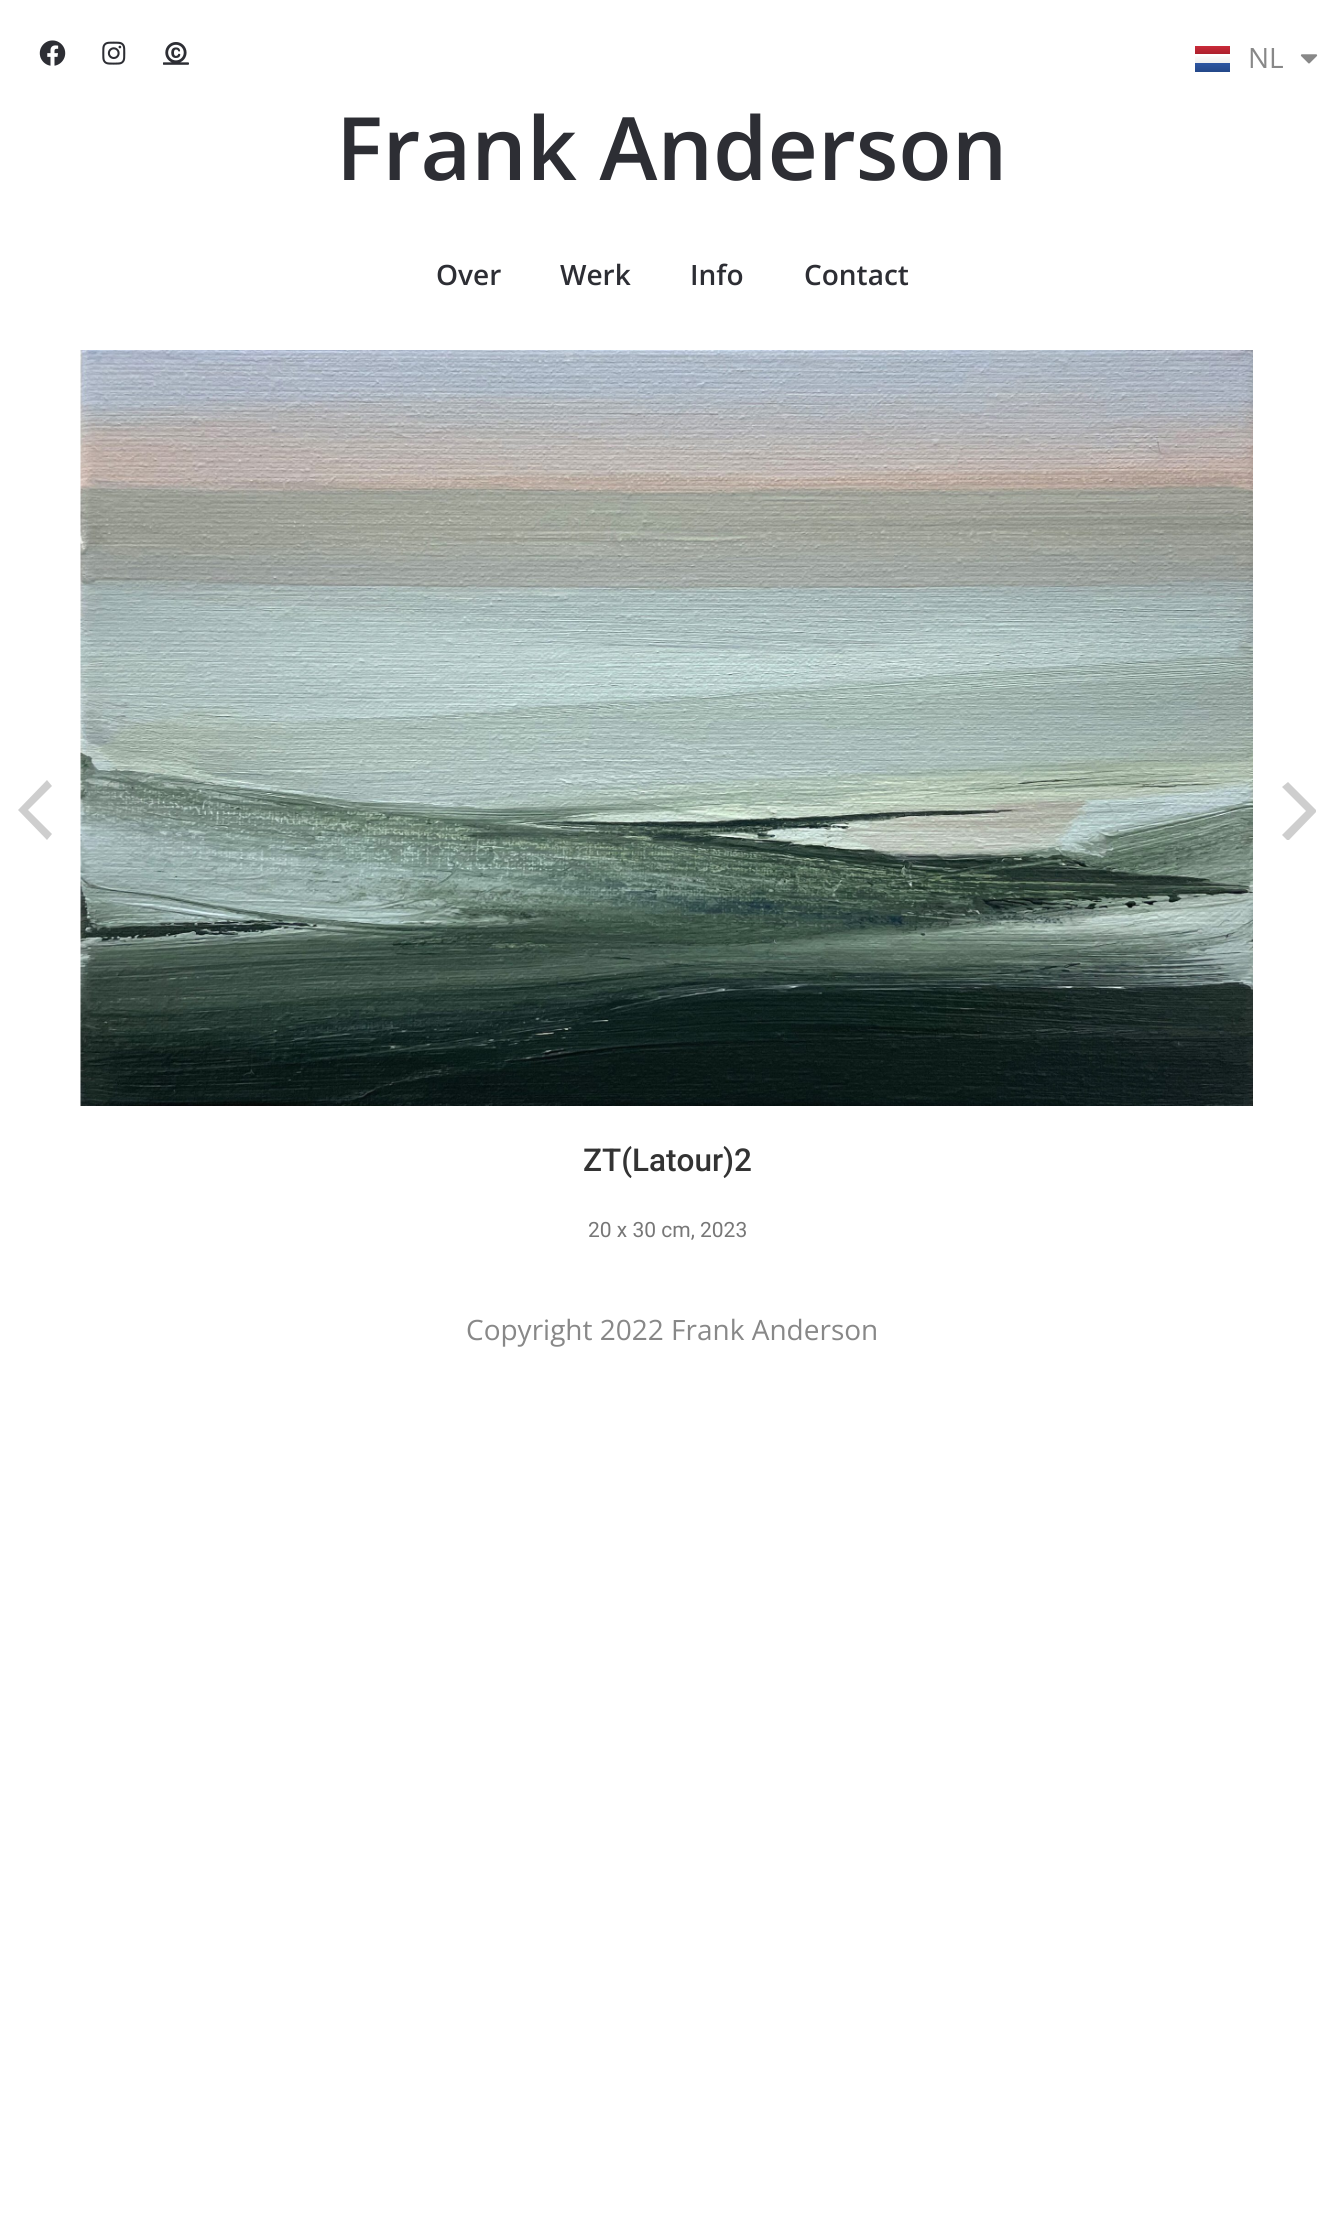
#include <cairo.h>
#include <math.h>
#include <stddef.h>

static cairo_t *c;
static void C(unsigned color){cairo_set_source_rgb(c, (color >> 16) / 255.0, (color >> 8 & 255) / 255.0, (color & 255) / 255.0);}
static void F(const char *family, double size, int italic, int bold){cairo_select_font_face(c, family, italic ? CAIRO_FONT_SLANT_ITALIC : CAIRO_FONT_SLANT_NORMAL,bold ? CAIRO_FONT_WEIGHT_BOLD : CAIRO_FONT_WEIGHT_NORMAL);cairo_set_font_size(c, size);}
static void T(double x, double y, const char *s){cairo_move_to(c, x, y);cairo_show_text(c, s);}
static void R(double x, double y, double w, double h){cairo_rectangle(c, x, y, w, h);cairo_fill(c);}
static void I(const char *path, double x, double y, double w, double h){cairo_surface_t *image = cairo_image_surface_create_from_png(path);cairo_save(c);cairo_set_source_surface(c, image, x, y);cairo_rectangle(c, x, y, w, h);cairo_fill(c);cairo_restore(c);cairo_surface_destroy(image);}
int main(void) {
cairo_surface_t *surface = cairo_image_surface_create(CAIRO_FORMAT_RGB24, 1343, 2224);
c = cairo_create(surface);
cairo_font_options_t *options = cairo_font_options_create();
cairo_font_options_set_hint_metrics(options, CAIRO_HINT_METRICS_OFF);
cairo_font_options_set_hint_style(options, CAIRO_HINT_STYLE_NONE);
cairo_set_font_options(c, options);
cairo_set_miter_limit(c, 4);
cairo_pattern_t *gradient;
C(0xffffff);
cairo_paint(c);
I("1.png",39,40,27,26);
I("2.png",102,41,24,24);
I("3.png",163,42,26,23);
gradient = cairo_pattern_create_linear(1212,46,1212,54);
cairo_pattern_add_color_stop_rgba(gradient,0,0.792,0.169,0.224,1);
cairo_pattern_add_color_stop_rgba(gradient,1,0.675,0.122,0.173,1);
cairo_set_source(c,gradient);
cairo_pattern_destroy(gradient);
R(1195,46,35,8);
gradient = cairo_pattern_create_linear(1212,63,1212,72);
cairo_pattern_add_color_stop_rgba(gradient,0,0.173,0.337,0.635,1);
cairo_pattern_add_color_stop_rgba(gradient,1,0.141,0.282,0.537,1);
cairo_set_source(c,gradient);
cairo_pattern_destroy(gradient);
R(1195,63,35,9);
gradient = cairo_pattern_create_linear(1212,54,1212,63);
cairo_pattern_add_color_stop_rgba(gradient,0,1,1,1,1);
cairo_pattern_add_color_stop_rgba(gradient,1,0.941,0.941,0.941,1);
cairo_set_source(c,gradient);
cairo_pattern_destroy(gradient);
R(1195,56,35,7);
F("Open Sans",28,0,0);
C(0x888888);
T(1248,68,"NL");
I("4.png",1300,54,18,10);
F("Open Sans SemiBold",87.5,0,0);
C(0x2d2e34);
T(336,180,"Frank Anderson");
F("Open Sans SemiBold",28,0,0);
T(436,285,"Over");
T(560,285,"Werk");
T(690,285,"Info");
T(804,285,"Contact");
C(0xcecece);
cairo_new_path(c);
cairo_move_to(c,28,810);
cairo_line_to(c,52,834);
cairo_line_to(c,47,840);
cairo_line_to(c,18,810);
cairo_line_to(c,47,780);
cairo_line_to(c,52,786);
cairo_close_path(c);
cairo_fill(c);
cairo_save(c);
cairo_rectangle(c,1281,781,35,59);
cairo_clip(c);
cairo_new_path(c);
cairo_move_to(c,1306,811);
cairo_line_to(c,1282,787);
cairo_line_to(c,1288,782);
cairo_line_to(c,1317,811);
cairo_line_to(c,1288,841);
cairo_line_to(c,1282,835);
cairo_close_path(c);
cairo_fill(c);
cairo_restore(c);
I("5.png",80,350,1173,756);
F("Roboto Medium",31.5,0,0);
C(0x333333);
T(583,1171,"ZT(Latour)2");
F("Roboto",21,0,0);
C(0x777777);
T(588,1237,"20 x 30 cm, 2023");
F("Open Sans",28,0,0);
C(0x888888);
T(466,1340,"Copyright 2022 Frank Anderson");
cairo_surface_write_to_png(surface, "o.png");
cairo_font_options_destroy(options);
cairo_destroy(c);
cairo_surface_destroy(surface);
return 0;
}
